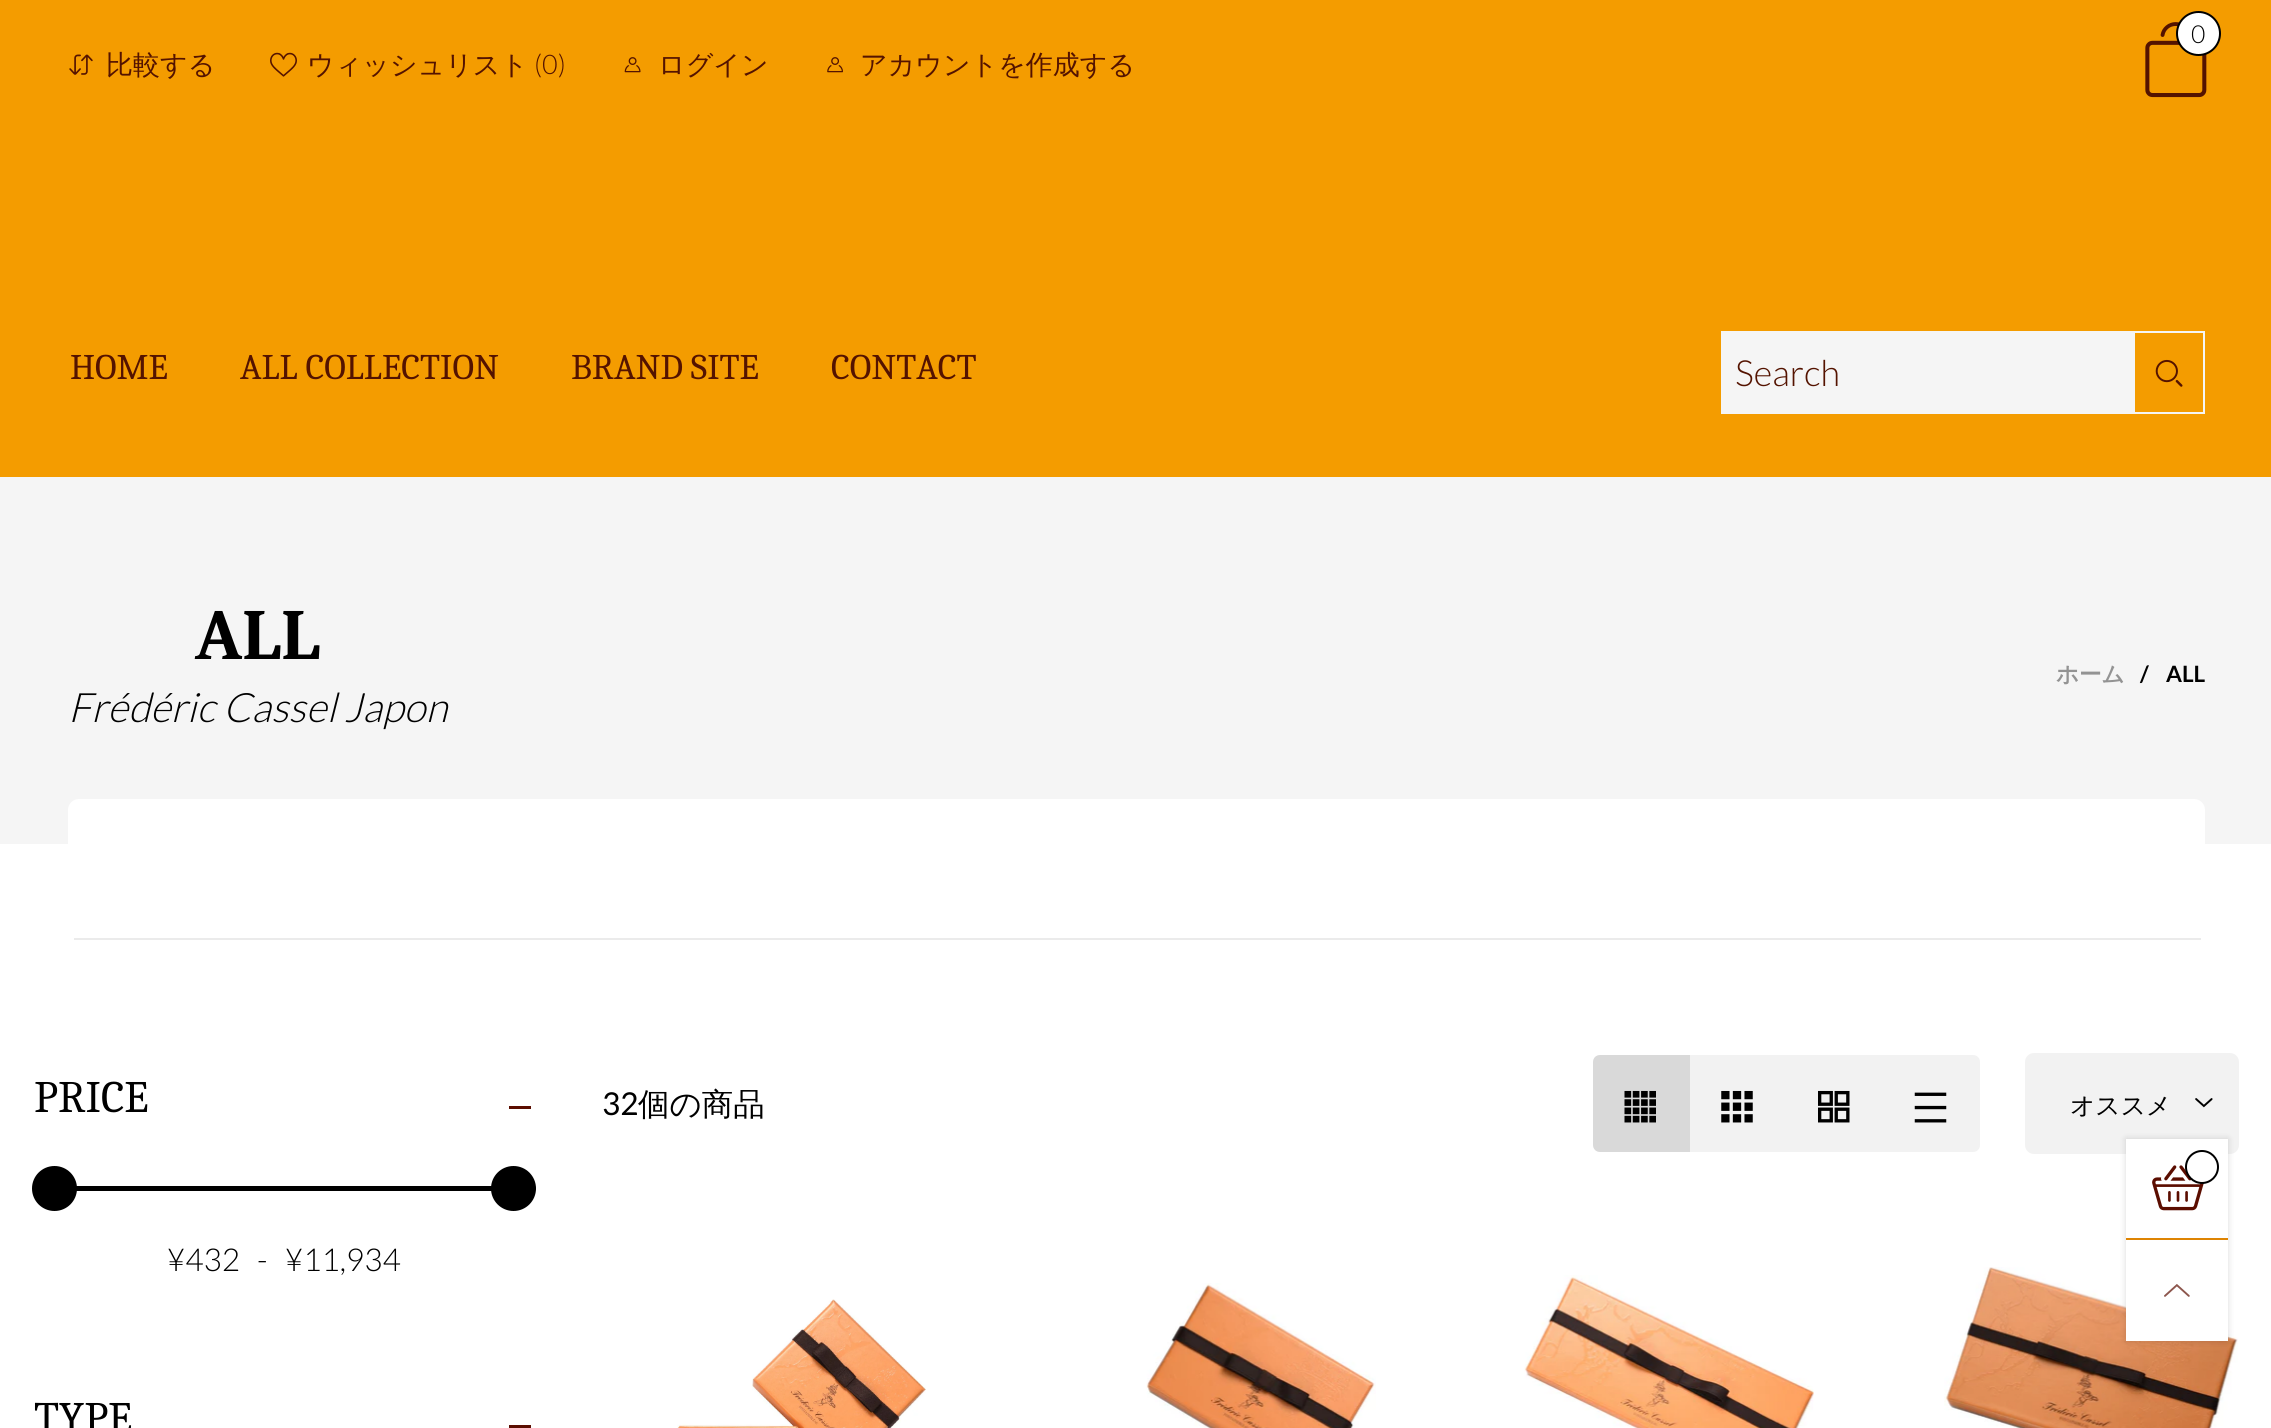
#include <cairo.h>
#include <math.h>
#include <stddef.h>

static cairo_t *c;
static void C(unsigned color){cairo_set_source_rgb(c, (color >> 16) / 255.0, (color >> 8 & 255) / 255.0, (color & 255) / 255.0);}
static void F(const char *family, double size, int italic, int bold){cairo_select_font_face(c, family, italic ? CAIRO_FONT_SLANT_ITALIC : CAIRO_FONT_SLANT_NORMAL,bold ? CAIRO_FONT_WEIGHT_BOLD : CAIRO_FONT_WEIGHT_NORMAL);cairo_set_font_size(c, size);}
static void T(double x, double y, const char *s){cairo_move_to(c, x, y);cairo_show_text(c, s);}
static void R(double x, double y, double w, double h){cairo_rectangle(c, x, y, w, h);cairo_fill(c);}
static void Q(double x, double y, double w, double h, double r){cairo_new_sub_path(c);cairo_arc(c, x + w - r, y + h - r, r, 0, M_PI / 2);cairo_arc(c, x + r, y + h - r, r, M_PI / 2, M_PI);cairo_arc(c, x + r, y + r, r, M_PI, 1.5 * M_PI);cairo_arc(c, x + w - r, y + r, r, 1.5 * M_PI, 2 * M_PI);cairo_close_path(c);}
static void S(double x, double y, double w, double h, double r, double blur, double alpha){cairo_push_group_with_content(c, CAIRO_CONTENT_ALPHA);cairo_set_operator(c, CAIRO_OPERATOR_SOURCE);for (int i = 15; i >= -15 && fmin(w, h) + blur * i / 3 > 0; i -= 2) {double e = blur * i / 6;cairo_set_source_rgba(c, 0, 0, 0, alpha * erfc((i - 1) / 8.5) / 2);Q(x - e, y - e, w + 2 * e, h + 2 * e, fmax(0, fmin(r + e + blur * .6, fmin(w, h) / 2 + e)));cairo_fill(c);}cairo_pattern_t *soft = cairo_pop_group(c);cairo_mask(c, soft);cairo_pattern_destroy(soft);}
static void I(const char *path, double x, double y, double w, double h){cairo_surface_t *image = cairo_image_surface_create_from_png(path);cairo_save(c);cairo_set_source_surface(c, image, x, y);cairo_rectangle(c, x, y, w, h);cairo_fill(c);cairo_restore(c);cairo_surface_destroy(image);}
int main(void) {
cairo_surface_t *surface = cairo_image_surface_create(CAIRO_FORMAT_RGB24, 2271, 1428);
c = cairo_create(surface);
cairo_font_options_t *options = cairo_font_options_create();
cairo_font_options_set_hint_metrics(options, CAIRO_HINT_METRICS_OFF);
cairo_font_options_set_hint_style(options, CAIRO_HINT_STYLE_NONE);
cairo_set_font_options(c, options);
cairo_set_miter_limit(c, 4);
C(0xffffff);
cairo_paint(c);
C(0xf49c00);
R(0,0,2271,477);
I("1.png",2145,22,62,76);
C(0xffffff);
cairo_arc(c,2198.5,33.5,21.5,0,2 * M_PI);
cairo_fill_preserve(c);
C(0x000000);
cairo_stroke(c);
F("Lato Light",24.75,0,0);
T(2191,43,"0");
I("2.png",69,54,24,21);
F("WenQuanYi Zen Hei Medium",27,0,0);
C(0x541300);
T(106,74,"比較する");
I("3.png",270,52,27,25);
T(307,74,"ウィッシュリスト");
F("Lato Light",27,0,0);
T(534,74,"(0)");
I("4.png",624,57,17,16);
F("WenQuanYi Zen Hei Medium",27,0,0);
T(658,74,"ログイン");
I("5.png",827,57,16,16);
T(860,74,"アカウントを作成する");
F("Caladea",36,0,0);
T(70,379,"HOME");
T(240,379,"ALL COLLECTION");
T(571,379,"BRAND SITE");
T(831,379,"CONTACT");
C(0xf5f5f5);
R(1721,331,414,83);
F("Lato Light",36,0,0);
C(0x541300);
T(1735,386,"Search");
C(0xf5f5f5);
R(2135,331,70,2);
R(2203,331,2,83);
R(2135,412,70,2);
I("6.png",2155,359,28,28);
R(0,477,2271,367);
F("Caladea",72,0,1);
C(0x000000);
T(195,659,"ALL");
F("Lato Light",40.5,1,0);
T(68,722,"Frédéric Cassel Japon");
F("WenQuanYi Zen Hei",22.5,0,1);
C(0x939393);
T(2056,682,"ホーム");
F("Lato",22.5,0,1);
C(0x000000);
T(2140,682,"/");
T(2166,682,"ALL");
C(0xffffff);
Q(68,799,2137,142,11);
cairo_fill(c);
C(0xebebeb);
R(74,938,2127,2);
F("Caladea",45,0,0);
C(0x000000);
T(34,1112,"PRICE");
C(0x5b0d00);
R(509,1106,22,3);
C(0x000000);
Q(34,1186,502,5,2.5);
cairo_fill(c);
cairo_arc(c,54.5,1188.5,20,0,2 * M_PI);
cairo_fill_preserve(c);
cairo_set_line_width(c,5);
cairo_stroke(c);
cairo_arc(c,513.5,1188.5,20,0,2 * M_PI);
cairo_fill_preserve(c);
cairo_stroke(c);
F("Lato Light",31.5,0,0);
T(167,1271,"¥432");
T(257,1271,"-");
T(285,1271,"¥11,934");
F("Caladea",45,0,0);
T(34,1433,"TYPE");
C(0x5b0d00);
R(509,1425,22,3);
F("Lato",31.5,0,0);
C(0x000000);
T(602,1115,"32");
F("WenQuanYi Zen Hei Medium",31.5,0,0);
T(638,1115,"個の商品");
C(0xd9d9d9);
cairo_new_path(c);
cairo_move_to(c,1600,1055);
cairo_line_to(c,1690,1055);
cairo_line_to(c,1690,1152);
cairo_line_to(c,1600,1152);
cairo_curve_to(c,1596,1152,1593,1149,1593,1145);
cairo_line_to(c,1593,1062);
cairo_curve_to(c,1593,1058,1596,1055,1600,1055);
cairo_close_path(c);
cairo_fill(c);
I("7.png",1624,1090,32,33);
C(0xf2f2f2);
R(1690,1055,193,97);
I("8.png",1721,1090,32,33);
cairo_new_path(c);
cairo_move_to(c,1883,1055);
cairo_line_to(c,1973,1055);
cairo_curve_to(c,1977,1055,1980,1058,1980,1062);
cairo_line_to(c,1980,1145);
cairo_curve_to(c,1980,1149,1977,1152,1973,1152);
cairo_line_to(c,1883,1152);
cairo_close_path(c);
cairo_fill(c);
I("9.png",1914,1092,33,31);
I("10.png",1818,1090,32,33);
Q(2025,1053,214,101,9);
cairo_fill(c);
F("WenQuanYi Zen Hei Medium",24.75,0,0);
C(0x000000);
T(2070,1114,"オススメ");
I("11.png",2195,1098,18,10);
I("12.png",677,1299,249,129);
I("13.png",1146,1283,230,145);
I("14.png",1524,1275,290,153);
I("15.png",1944,1267,294,161);
C(0x000000);
S(2126,1139,102,202,0,3.5,.15);
C(0xffffff);
R(2126,1139,102,202);
C(0xde8403);
R(2126,1238,102,2);
I("16.png",2152,1165,52,46);
C(0xffffff);
cairo_arc(c,2202,1167,16,0,2 * M_PI);
cairo_fill_preserve(c);
C(0x000000);
cairo_set_line_width(c,2);
cairo_stroke(c);
I("17.png",2164,1284,26,13);
cairo_surface_write_to_png(surface, "o.png");
cairo_font_options_destroy(options);
cairo_destroy(c);
cairo_surface_destroy(surface);
return 0;
}
